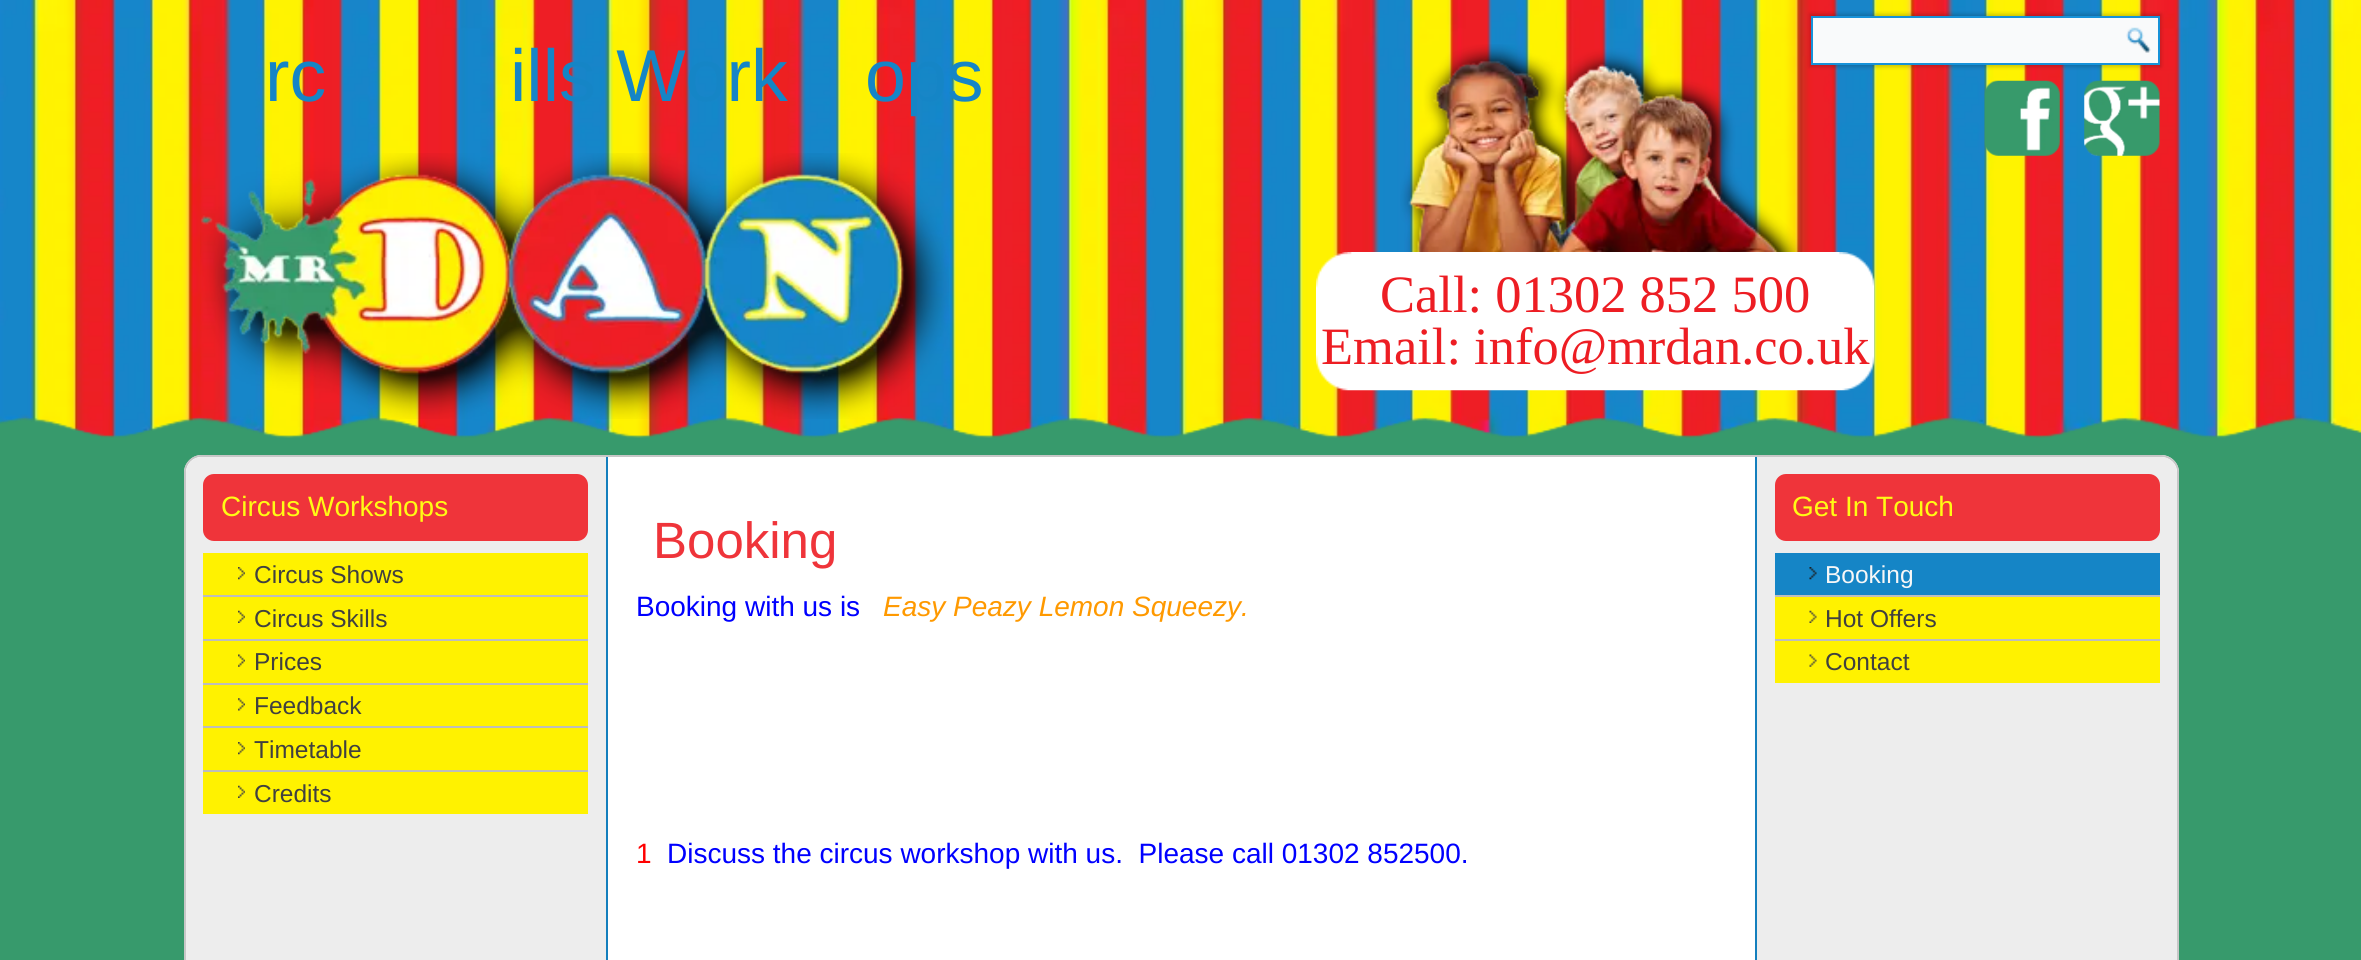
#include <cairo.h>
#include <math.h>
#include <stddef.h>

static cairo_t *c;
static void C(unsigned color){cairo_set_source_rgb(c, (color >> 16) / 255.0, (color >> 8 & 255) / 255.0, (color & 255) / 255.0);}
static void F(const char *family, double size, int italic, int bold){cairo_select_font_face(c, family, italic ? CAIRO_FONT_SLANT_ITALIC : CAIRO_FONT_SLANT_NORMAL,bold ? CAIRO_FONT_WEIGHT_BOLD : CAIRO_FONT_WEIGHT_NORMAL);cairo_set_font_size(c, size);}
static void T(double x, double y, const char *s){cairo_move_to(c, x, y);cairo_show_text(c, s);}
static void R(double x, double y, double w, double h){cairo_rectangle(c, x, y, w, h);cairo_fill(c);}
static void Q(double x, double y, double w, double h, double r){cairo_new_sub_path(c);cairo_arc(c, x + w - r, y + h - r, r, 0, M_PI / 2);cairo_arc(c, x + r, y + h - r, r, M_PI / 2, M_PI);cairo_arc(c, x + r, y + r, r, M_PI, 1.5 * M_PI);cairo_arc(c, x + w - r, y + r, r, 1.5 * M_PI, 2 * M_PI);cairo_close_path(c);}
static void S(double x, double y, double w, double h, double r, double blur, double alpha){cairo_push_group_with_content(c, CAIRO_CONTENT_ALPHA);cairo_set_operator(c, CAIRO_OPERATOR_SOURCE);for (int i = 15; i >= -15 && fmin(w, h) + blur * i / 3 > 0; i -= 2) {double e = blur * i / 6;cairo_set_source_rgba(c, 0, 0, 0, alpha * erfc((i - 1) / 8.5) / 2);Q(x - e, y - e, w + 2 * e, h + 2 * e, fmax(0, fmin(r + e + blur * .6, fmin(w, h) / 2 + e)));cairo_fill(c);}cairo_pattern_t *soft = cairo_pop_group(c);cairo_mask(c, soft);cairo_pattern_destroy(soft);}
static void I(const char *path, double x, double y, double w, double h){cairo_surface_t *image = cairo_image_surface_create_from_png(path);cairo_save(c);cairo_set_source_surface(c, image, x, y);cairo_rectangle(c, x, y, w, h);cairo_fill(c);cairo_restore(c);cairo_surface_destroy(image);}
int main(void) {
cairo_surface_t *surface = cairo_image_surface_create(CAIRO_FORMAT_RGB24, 2361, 960);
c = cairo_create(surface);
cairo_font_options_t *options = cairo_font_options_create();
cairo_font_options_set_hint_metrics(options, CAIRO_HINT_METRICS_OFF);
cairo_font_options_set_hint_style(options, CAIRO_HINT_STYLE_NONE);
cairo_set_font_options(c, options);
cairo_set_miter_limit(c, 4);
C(0x379a6c);
cairo_paint(c);
I("1.png",0,0,2361,438);
F("Liberation Sans",73.5,0,0);
C(0x1585c6);
T(265,101,"rc");
T(510,101,"ills Work");
T(865,101,"ops");
C(0x000000);
S(1810,14,351,53,0,2,.2);
C(0xf9fafb);
cairo_rectangle(c,1812,17,347,47);
cairo_fill_preserve(c);
C(0x1792d9);
cairo_stroke(c);
I("2.png",2126,27,25,26);
I("3.png",1984,80,76,76);
I("4.png",2084,80,76,76);
I("5.png",200,153,749,266);
I("6.png",1400,44,402,208);
I("7.png",1316,252,559,139);
F("Liberation Serif",52.5,0,0);
C(0xed1d23);
T(1380,312,"Call: 01302 852 500");
T(1321,364,"Email: info@mrdan.co.uk");
C(0xffffff);
cairo_new_path(c);
cairo_move_to(c,202,455);
cairo_line_to(c,2161,455);
cairo_curve_to(c,2171,455,2179,463,2179,473);
cairo_line_to(c,2179,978);
cairo_line_to(c,184,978);
cairo_line_to(c,184,473);
cairo_curve_to(c,184,463,192,455,202,455);
cairo_close_path(c);
cairo_fill(c);
C(0xc7c7c7);
cairo_set_fill_rule(c,CAIRO_FILL_RULE_EVEN_ODD);
cairo_new_path(c);
cairo_move_to(c,201,455);
cairo_line_to(c,2161,455);
cairo_curve_to(c,2171,455,2179,463,2179,472);
cairo_line_to(c,2179,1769);
cairo_line_to(c,184,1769);
cairo_line_to(c,184,472);
cairo_curve_to(c,184,463,192,455,201,455);
cairo_close_path(c);
cairo_move_to(c,201,457);
cairo_line_to(c,2161,457);
cairo_curve_to(c,2170,457,2177,464,2177,472);
cairo_line_to(c,2177,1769);
cairo_line_to(c,186,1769);
cairo_line_to(c,186,472);
cairo_curve_to(c,186,464,193,457,201,457);
cairo_close_path(c);
cairo_fill(c);
C(0xededed);
cairo_new_path(c);
cairo_move_to(c,202,457);
cairo_line_to(c,607,457);
cairo_line_to(c,607,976);
cairo_line_to(c,186,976);
cairo_line_to(c,186,473);
cairo_curve_to(c,186,464,193,457,202,457);
cairo_close_path(c);
cairo_fill(c);
C(0x147fbd);
R(606,457,2,503);
C(0xef343a);
Q(203,474,385,67,11);
cairo_fill(c);
F("Liberation Sans",28,0,0);
C(0xfffb14);
T(221,516,"Circus Workshops");
C(0xfff200);
R(203,553,385,42);
I("8.png",238,567,7,13);
F("Liberation Sans",24.5,0,0);
C(0x404040);
T(254,583,"Circus Shows");
C(0xbdbdbd);
R(203,595,385,2);
C(0xfff200);
R(203,597,385,42);
I("9.png",238,610,7,13);
C(0x404040);
T(254,627,"Circus Skills");
C(0xbdbdbd);
R(203,639,385,2);
C(0xfff200);
R(203,641,385,42);
I("10.png",238,654,7,13);
C(0x404040);
T(254,670,"Prices");
C(0xbdbdbd);
R(203,683,385,2);
C(0xfff200);
R(203,685,385,41);
I("11.png",238,698,7,13);
C(0x404040);
T(254,714,"Feedback");
C(0xbdbdbd);
R(203,726,385,2);
C(0xfff200);
R(203,728,385,42);
I("8.png",238,742,7,13);
C(0x404040);
T(254,758,"Timetable");
C(0xbdbdbd);
R(203,770,385,2);
C(0xfff200);
R(203,772,385,42);
I("9.png",238,785,7,13);
C(0x404040);
T(254,802,"Credits");
F("Liberation Sans",51,0,0);
C(0xef343a);
T(653,558,"Booking");
F("Liberation Sans",28,0,0);
C(0x0000ff);
T(636,616,"Booking with us is");
F("Liberation Sans",28,1,0);
C(0xff9900);
T(883,616,"Easy Peazy Lemon Squeezy.");
F("Liberation Sans",28,0,0);
C(0xff0000);
T(636,863,"1");
C(0x0000ff);
T(667,863,"Discuss the circus workshop with us.  Please call 01302 852500.");
C(0xededed);
cairo_new_path(c);
cairo_move_to(c,1755,457);
cairo_line_to(c,2161,457);
cairo_curve_to(c,2170,457,2177,464,2177,473);
cairo_line_to(c,2177,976);
cairo_line_to(c,1755,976);
cairo_close_path(c);
cairo_fill(c);
C(0x147fbd);
R(1755,457,2,503);
C(0xef343a);
Q(1775,474,385,67,11);
cairo_fill(c);
C(0xfffb14);
T(1792,516,"Get In Touch");
C(0x1585c6);
R(1775,553,385,42);
I("12.png",1809,567,8,13);
F("Liberation Sans",24.5,0,0);
C(0xf7f7f7);
T(1825,583,"Booking");
C(0xbdbdbd);
R(1775,595,385,2);
C(0xfff200);
R(1775,597,385,42);
I("13.png",1809,610,8,13);
C(0x404040);
T(1825,627,"Hot Offers");
C(0xbdbdbd);
R(1775,639,385,2);
C(0xfff200);
R(1775,641,385,42);
I("14.png",1809,654,8,13);
C(0x404040);
T(1825,670,"Contact");
cairo_surface_write_to_png(surface, "o.png");
cairo_font_options_destroy(options);
cairo_destroy(c);
cairo_surface_destroy(surface);
return 0;
}
